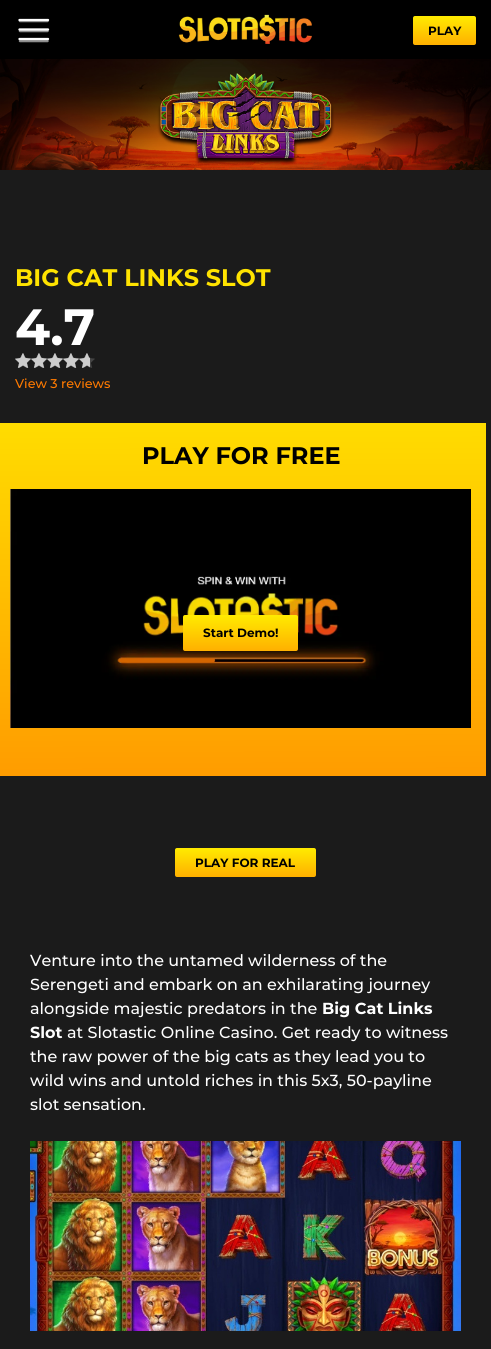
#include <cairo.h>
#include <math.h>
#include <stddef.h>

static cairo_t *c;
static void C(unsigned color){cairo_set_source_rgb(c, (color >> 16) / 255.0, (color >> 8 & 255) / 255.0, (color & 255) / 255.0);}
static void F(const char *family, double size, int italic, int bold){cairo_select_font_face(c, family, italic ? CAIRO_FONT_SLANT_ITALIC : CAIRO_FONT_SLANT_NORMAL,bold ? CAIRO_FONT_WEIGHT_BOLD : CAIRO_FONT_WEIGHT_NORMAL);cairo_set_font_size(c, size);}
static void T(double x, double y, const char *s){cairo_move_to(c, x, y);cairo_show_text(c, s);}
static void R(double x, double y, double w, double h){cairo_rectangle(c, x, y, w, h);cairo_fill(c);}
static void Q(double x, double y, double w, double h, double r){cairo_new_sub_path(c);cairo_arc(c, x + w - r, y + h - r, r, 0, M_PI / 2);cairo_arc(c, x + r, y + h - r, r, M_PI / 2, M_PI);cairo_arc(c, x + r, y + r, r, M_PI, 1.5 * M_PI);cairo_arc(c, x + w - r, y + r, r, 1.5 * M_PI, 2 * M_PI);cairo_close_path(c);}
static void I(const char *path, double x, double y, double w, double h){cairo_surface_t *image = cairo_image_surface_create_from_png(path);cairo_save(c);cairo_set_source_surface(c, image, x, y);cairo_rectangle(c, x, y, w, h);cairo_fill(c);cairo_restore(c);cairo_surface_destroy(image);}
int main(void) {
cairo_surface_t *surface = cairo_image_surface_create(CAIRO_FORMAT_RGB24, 491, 1349);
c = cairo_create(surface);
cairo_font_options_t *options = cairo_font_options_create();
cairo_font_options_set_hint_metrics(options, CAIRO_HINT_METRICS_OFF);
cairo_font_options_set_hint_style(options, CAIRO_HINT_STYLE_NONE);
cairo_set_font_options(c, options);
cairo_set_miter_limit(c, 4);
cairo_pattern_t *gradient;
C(0x1b1b1b);
cairo_paint(c);
C(0x000000);
R(0,0,491,59);
cairo_new_path(c);
cairo_move_to(c,19.5,20);
cairo_line_to(c,48,20);
cairo_move_to(c,19.5,29.5);
cairo_line_to(c,48,29.5);
cairo_move_to(c,19.5,39);
cairo_line_to(c,48,39);
C(0xffffff);
cairo_set_line_width(c,2.3);
cairo_set_line_cap(c,CAIRO_LINE_CAP_ROUND);
cairo_stroke(c);
cairo_new_path(c);
cairo_move_to(c,20,21);
cairo_line_to(c,47.5,21);
cairo_move_to(c,20,31);
cairo_line_to(c,47.5,31);
cairo_move_to(c,20,41);
cairo_line_to(c,47.5,41);
cairo_set_source_rgba(c,1,1,1,0.55);
cairo_set_line_width(c,2.5);
cairo_stroke(c);
I("1.png",178,14,134,30);
gradient = cairo_pattern_create_linear(445,16,445,45);
cairo_pattern_add_color_stop_rgba(gradient,0,1,0.922,0,1);
cairo_pattern_add_color_stop_rgba(gradient,1,1,0.69,0,1);
cairo_set_source(c,gradient);
cairo_pattern_destroy(gradient);
Q(413,16,63,29,2);
cairo_fill(c);
F("Montserrat",12,0,1);
C(0x000000);
T(428,35,"PLAY");
I("2.png",0,59,491,111);
F("Montserrat",24,0,1);
C(0xffe300);
T(15,286,"BIG CAT LINKS SLOT");
F("Montserrat",51,0,1);
C(0xffffff);
T(15,345,"4.7");
I("3.png",15,353,75,15);
I("4.png",15,353,80,15);
F("Montserrat Medium",12.75,0,0);
C(0xff7a00);
T(15,388,"View 3 reviews");
gradient = cairo_pattern_create_linear(240,423,241,776);
cairo_pattern_add_color_stop_rgba(gradient,0,1,0.863,0,1);
cairo_pattern_add_color_stop_rgba(gradient,1,1,0.612,0,1);
cairo_set_source(c,gradient);
cairo_pattern_destroy(gradient);
R(0,423,486,353);
F("Montserrat",24,0,1);
C(0x000000);
T(142,464,"PLAY FOR FREE");
I("5.png",10,489,461,239);
gradient = cairo_pattern_create_linear(241,615,241,651);
cairo_pattern_add_color_stop_rgba(gradient,0,1,0.922,0,1);
cairo_pattern_add_color_stop_rgba(gradient,1,1,0.69,0,1);
cairo_set_source(c,gradient);
cairo_pattern_destroy(gradient);
Q(183,615,115,36,2);
cairo_fill(c);
F("Montserrat",12,0,1);
C(0x000000);
T(203,637,"Start Demo!");
gradient = cairo_pattern_create_linear(246,848,246,877);
cairo_pattern_add_color_stop_rgba(gradient,0,1,0.922,0,1);
cairo_pattern_add_color_stop_rgba(gradient,1,1,0.69,0,1);
cairo_set_source(c,gradient);
cairo_pattern_destroy(gradient);
Q(175,848,141,29,2);
cairo_fill(c);
C(0x000000);
T(195,867,"PLAY FOR REAL");
F("Montserrat Medium",16,0,0);
C(0xffffff);
T(30,966,"Venture into the untamed wilderness of the");
T(30,990,"Serengeti and embark on an exhilarating journey");
T(30,1014,"alongside majestic predators in the");
F("Montserrat",16,0,1);
T(322,1014,"Big Cat Links");
T(30,1038,"Slot");
F("Montserrat Medium",16,0,0);
T(67,1038,"at Slotastic Online Casino. Get ready to witness");
T(30,1062,"the raw power of the big cats as they lead you to");
T(30,1086,"wild wins and untold riches in this 5x3, 50-payline");
T(30,1110,"slot sensation.");
I("6.png",30,1141,431,190);
cairo_surface_write_to_png(surface, "o.png");
cairo_font_options_destroy(options);
cairo_destroy(c);
cairo_surface_destroy(surface);
return 0;
}
